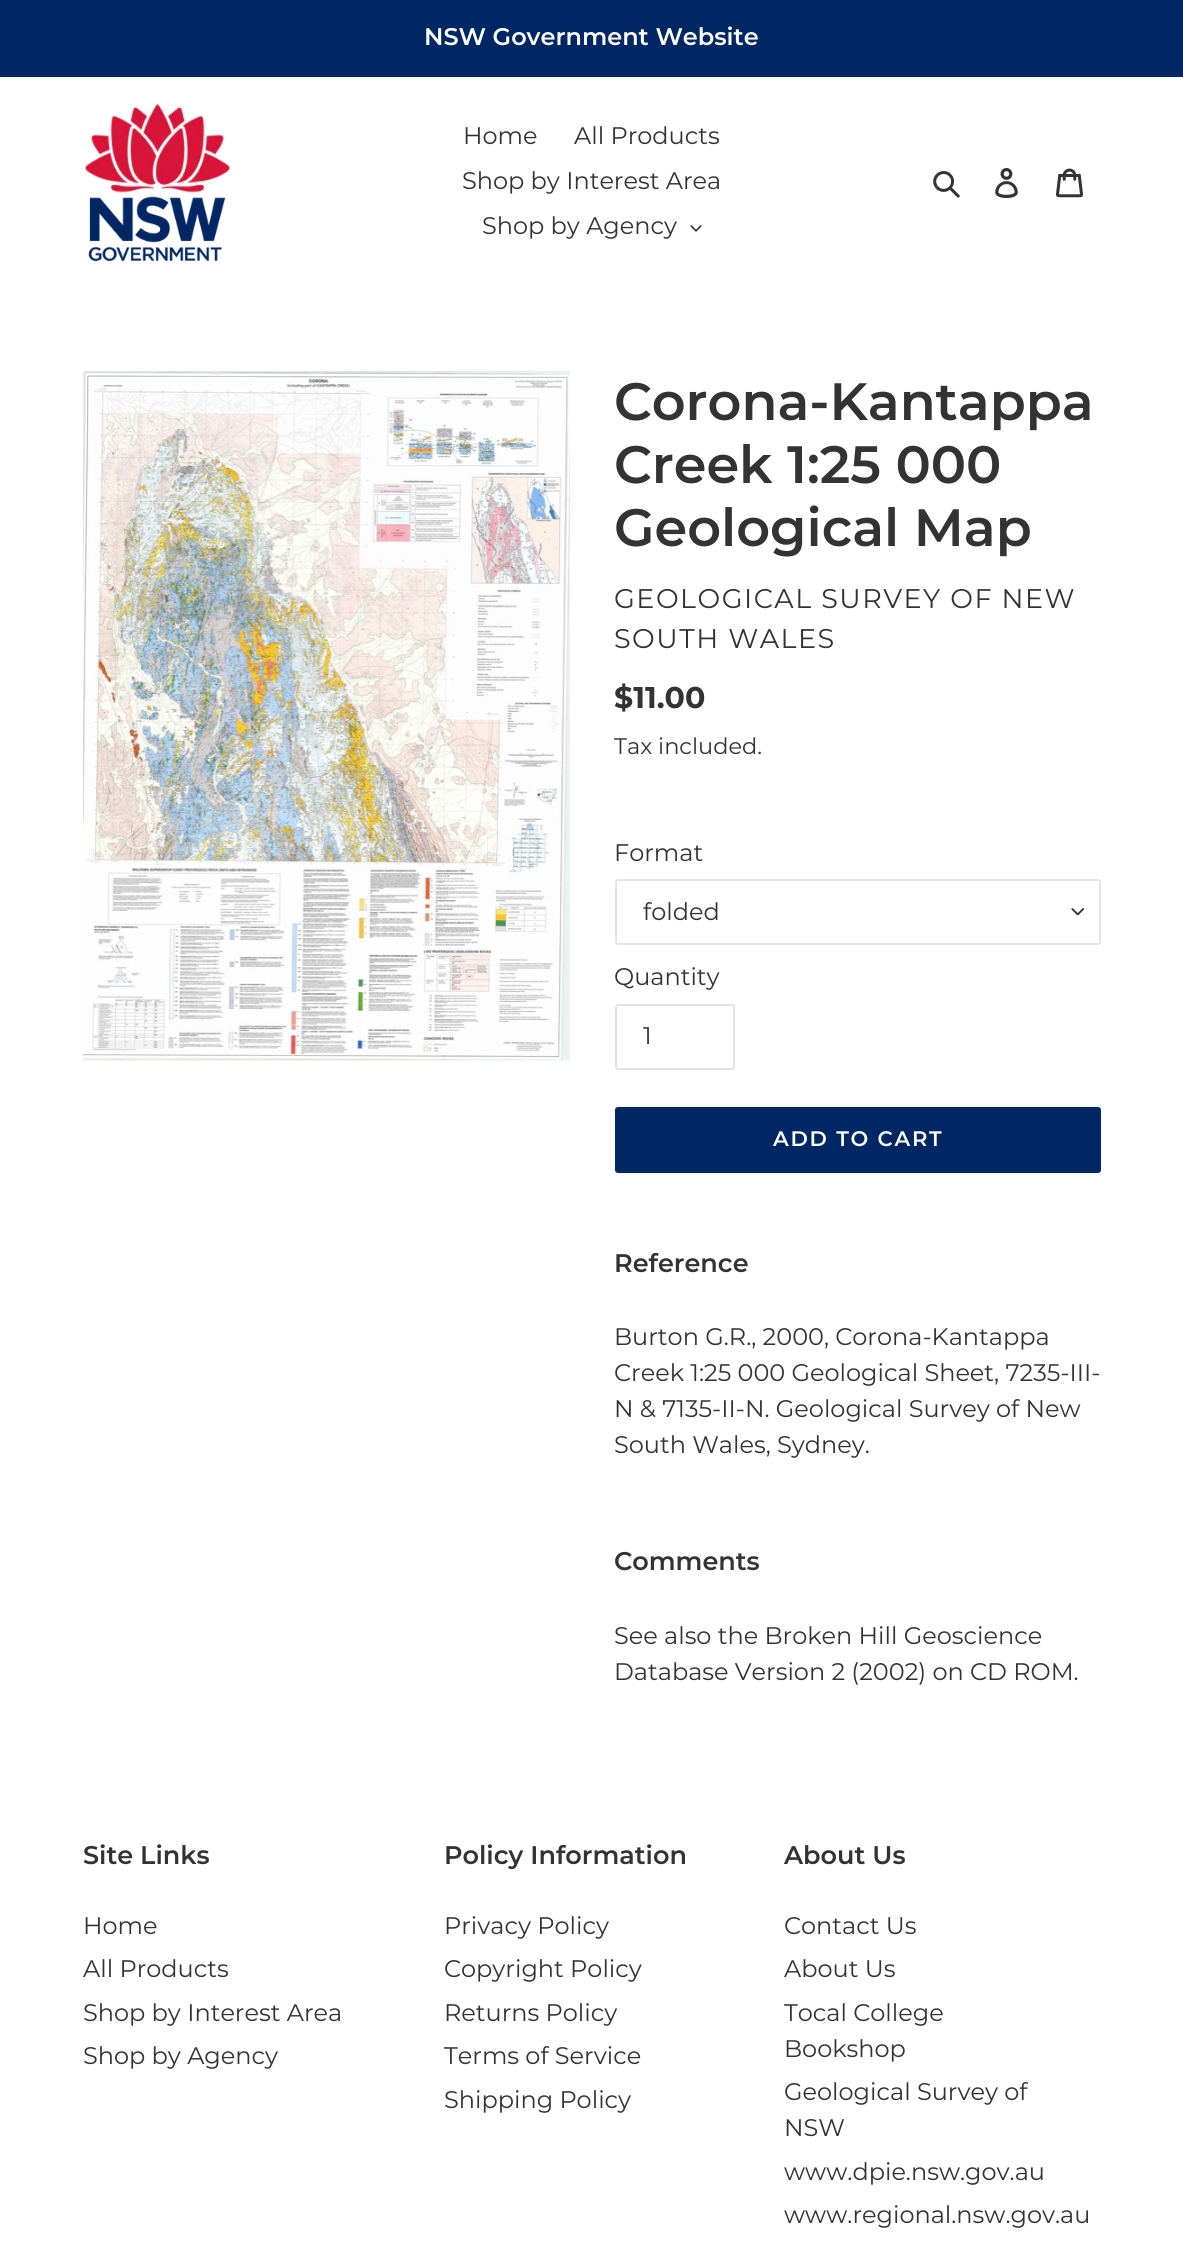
#include <cairo.h>
#include <math.h>
#include <stddef.h>

static cairo_t *c;
static void C(unsigned color){cairo_set_source_rgb(c, (color >> 16) / 255.0, (color >> 8 & 255) / 255.0, (color & 255) / 255.0);}
static void F(const char *family, double size, int italic, int bold){cairo_select_font_face(c, family, italic ? CAIRO_FONT_SLANT_ITALIC : CAIRO_FONT_SLANT_NORMAL,bold ? CAIRO_FONT_WEIGHT_BOLD : CAIRO_FONT_WEIGHT_NORMAL);cairo_set_font_size(c, size);}
static void T(double x, double y, const char *s){cairo_move_to(c, x, y);cairo_show_text(c, s);}
static void L(double x, double y, const char *s, double letter, double word){cairo_move_to(c, x, y);while (*s) {char ch[5] = {0};int n = 0;do ch[n++] = *s++; while ((*s & 0xC0) == 0x80);cairo_show_text(c, ch);cairo_rel_move_to(c, letter + word * (*ch == ' '), 0);}}
static void R(double x, double y, double w, double h){cairo_rectangle(c, x, y, w, h);cairo_fill(c);}
static void Q(double x, double y, double w, double h, double r){cairo_new_sub_path(c);cairo_arc(c, x + w - r, y + h - r, r, 0, M_PI / 2);cairo_arc(c, x + r, y + h - r, r, M_PI / 2, M_PI);cairo_arc(c, x + r, y + r, r, M_PI, 1.5 * M_PI);cairo_arc(c, x + w - r, y + r, r, 1.5 * M_PI, 2 * M_PI);cairo_close_path(c);}
static void I(const char *path, double x, double y, double w, double h){cairo_surface_t *image = cairo_image_surface_create_from_png(path);cairo_save(c);cairo_set_source_surface(c, image, x, y);cairo_rectangle(c, x, y, w, h);cairo_fill(c);cairo_restore(c);cairo_surface_destroy(image);}
int main(void) {
cairo_surface_t *surface = cairo_image_surface_create(CAIRO_FORMAT_RGB24, 1183, 2262);
c = cairo_create(surface);
cairo_font_options_t *options = cairo_font_options_create();
cairo_font_options_set_hint_metrics(options, CAIRO_HINT_METRICS_OFF);
cairo_font_options_set_hint_style(options, CAIRO_HINT_STYLE_NONE);
cairo_set_font_options(c, options);
cairo_set_miter_limit(c, 4);
C(0xffffff);
cairo_paint(c);
C(0x002664);
R(0,0,1183,77);
F("Montserrat SemiBold",24,0,0);
C(0xffffff);
T(424,45,"NSW Government Website");
I("1.png",83,103,147,158);
F("Montserrat",24,0,0);
C(0x333333);
T(463,144,"Home");
T(574,144,"All Products");
T(462,189,"Shop by Interest Area");
T(482,234,"Shop by Agency");
I("2.png",690,225,12,7);
I("3.png",933,171,27,27);
I("4.png",995,168,23,30);
I("5.png",1056,168,27,30);
I("6.png",83,371,487,690);
F("Montserrat SemiBold",52.5,0,0);
T(614,420,"Corona-Kantappa");
T(614,483,"Creek 1:25 000");
T(614,546,"Geological Map");
F("Montserrat",27,0,0);
L(614,608,"GEOLOGICAL SURVEY OF NEW",1.5,0);
L(614,648,"SOUTH WALES",1.5,0);
F("Montserrat",30,0,1);
T(614,708,"$11.00");
F("Montserrat",22.5,0,0);
T(614,754,"Tax included.");
F("Montserrat",24,0,0);
T(614,861,"Format");
I("7.png",1071,908,13,8);
Q(616,880,484,64,2);
C(0xe4e4e6);
cairo_stroke(c);
C(0x333333);
T(643,920,"folded");
T(614,985,"Quantity");
Q(616,1005,118,64,2);
C(0xe4e4e6);
cairo_stroke(c);
C(0x333333);
T(643,1044,"1");
C(0x002664);
Q(615,1107,486,66,3);
cairo_fill(c);
F("Montserrat SemiBold",21,0,0);
C(0xffffff);
L(773,1146,"ADD TO CART",1.75,0);
F("Montserrat SemiBold",25.5,0,0);
C(0x333333);
T(614,1272,"Reference");
F("Montserrat",24,0,0);
T(614,1345,"Burton G.R., 2000, Corona-Kantappa");
T(614,1381,"Creek 1:25 000 Geological Sheet, 7235-III-");
T(614,1417,"N & 7135-II-N. Geological Survey of New");
T(614,1453,"South Wales, Sydney.");
F("Montserrat SemiBold",25.5,0,0);
T(614,1570,"Comments");
F("Montserrat",24,0,0);
T(614,1644,"See also the Broken Hill Geoscience");
T(614,1680,"Database Version 2 (2002) on CD ROM.");
F("Montserrat SemiBold",25.5,0,0);
T(83,1864,"Site Links");
F("Montserrat",24,0,0);
T(83,1934,"Home");
T(83,1977,"All Products");
T(83,2021,"Shop by Interest Area");
T(83,2064,"Shop by Agency");
F("Montserrat SemiBold",25.5,0,0);
T(444,1864,"Policy Information");
F("Montserrat",24,0,0);
T(444,1934,"Privacy Policy");
T(444,1977,"Copyright Policy");
T(444,2021,"Returns Policy");
T(444,2064,"Terms of Service");
T(444,2108,"Shipping Policy");
F("Montserrat SemiBold",25.5,0,0);
T(784,1864,"About Us");
F("Montserrat",24,0,0);
T(784,1934,"Contact Us");
T(784,1977,"About Us");
T(784,2021,"Tocal College");
T(784,2057,"Bookshop");
T(784,2100,"Geological Survey of");
T(784,2136,"NSW");
T(784,2180,"www.dpie.nsw.gov.au");
T(784,2223,"www.regional.nsw.gov.au");
cairo_surface_write_to_png(surface, "o.png");
cairo_font_options_destroy(options);
cairo_destroy(c);
cairo_surface_destroy(surface);
return 0;
}
